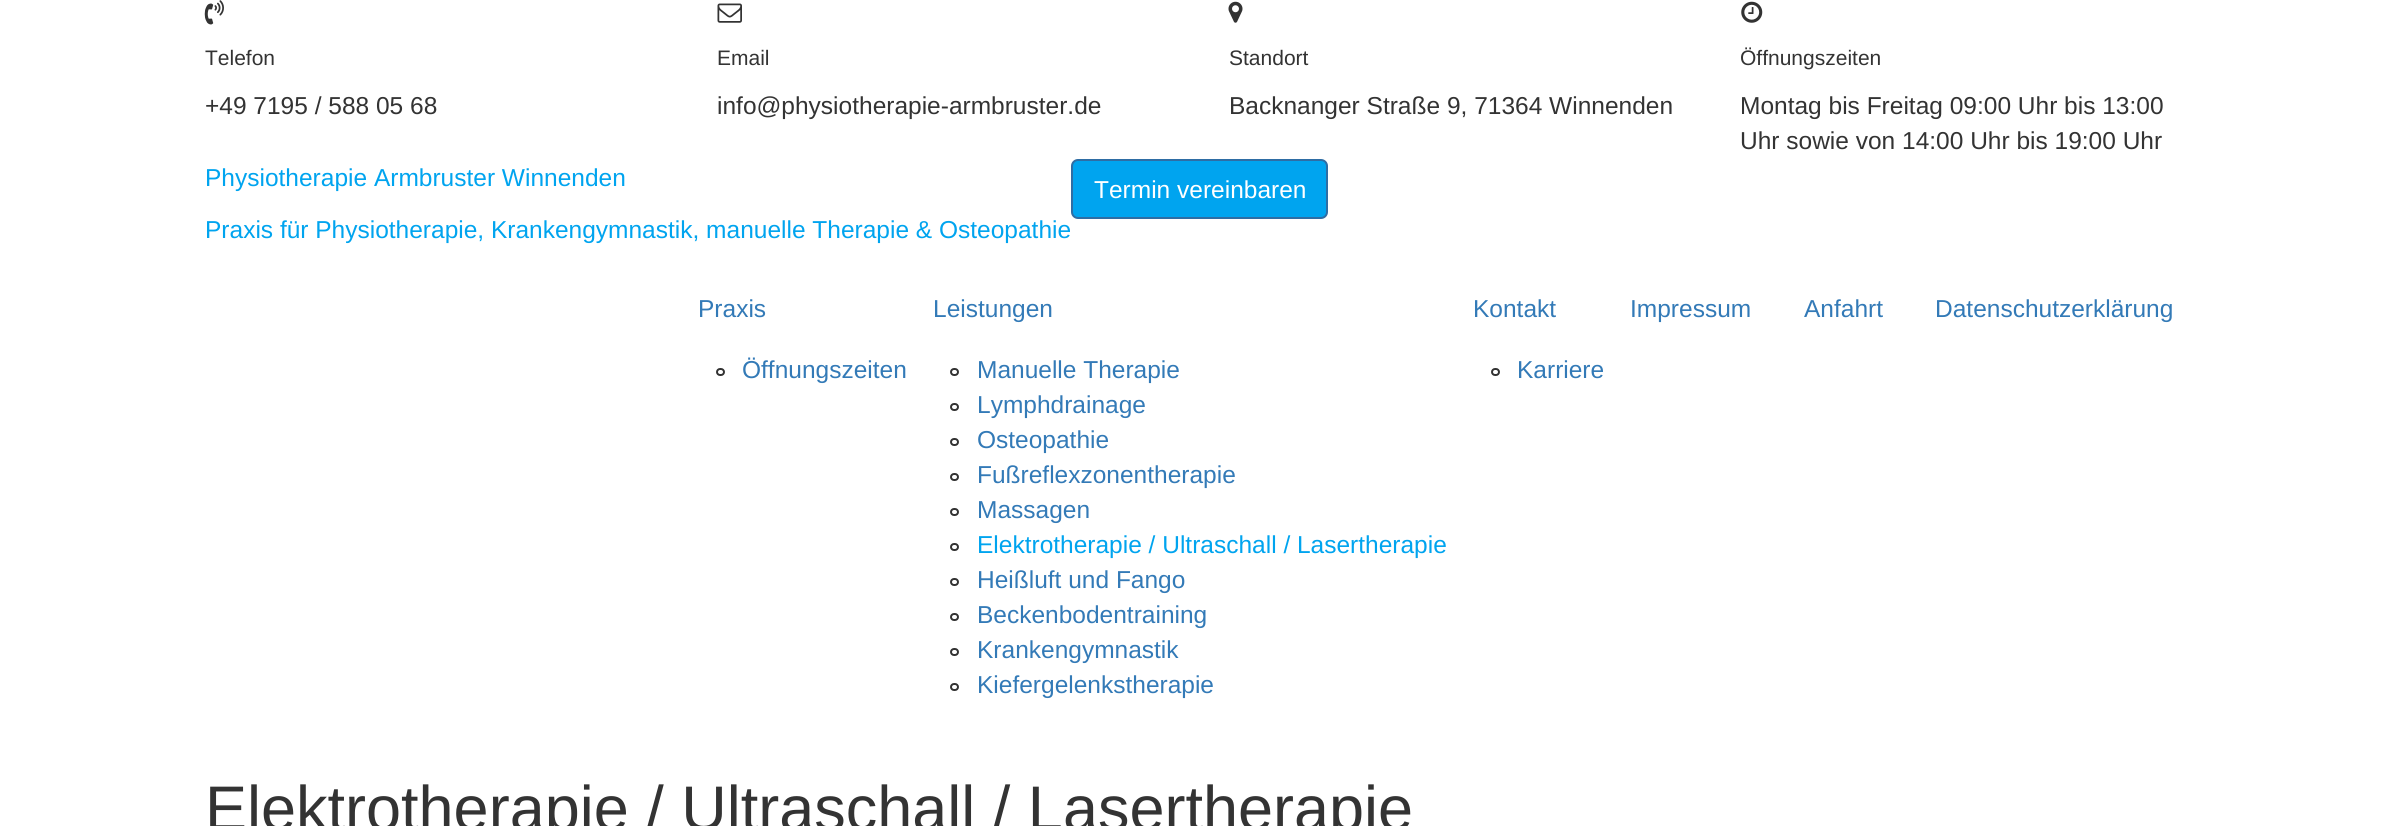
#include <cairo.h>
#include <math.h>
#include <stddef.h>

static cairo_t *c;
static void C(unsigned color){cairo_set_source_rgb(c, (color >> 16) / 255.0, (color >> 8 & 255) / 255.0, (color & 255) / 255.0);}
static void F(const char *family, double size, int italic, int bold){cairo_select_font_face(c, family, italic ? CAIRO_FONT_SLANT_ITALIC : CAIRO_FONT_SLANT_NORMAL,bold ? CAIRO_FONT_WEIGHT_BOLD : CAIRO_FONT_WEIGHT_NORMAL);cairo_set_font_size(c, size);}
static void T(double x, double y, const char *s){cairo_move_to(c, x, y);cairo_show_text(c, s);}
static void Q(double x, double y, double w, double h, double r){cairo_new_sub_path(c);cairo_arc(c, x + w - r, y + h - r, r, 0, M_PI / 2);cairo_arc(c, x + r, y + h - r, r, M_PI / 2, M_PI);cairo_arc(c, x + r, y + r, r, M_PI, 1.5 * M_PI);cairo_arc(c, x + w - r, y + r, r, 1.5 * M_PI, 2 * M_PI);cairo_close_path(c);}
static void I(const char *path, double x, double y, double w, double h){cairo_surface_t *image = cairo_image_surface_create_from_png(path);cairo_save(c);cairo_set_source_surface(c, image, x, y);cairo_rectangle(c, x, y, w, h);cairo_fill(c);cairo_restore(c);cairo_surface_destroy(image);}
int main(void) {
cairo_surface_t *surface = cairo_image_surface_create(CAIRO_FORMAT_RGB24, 2403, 826);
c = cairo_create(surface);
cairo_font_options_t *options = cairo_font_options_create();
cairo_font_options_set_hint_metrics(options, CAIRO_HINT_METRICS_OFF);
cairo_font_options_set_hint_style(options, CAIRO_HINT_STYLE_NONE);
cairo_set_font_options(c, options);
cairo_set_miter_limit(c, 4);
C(0xffffff);
cairo_paint(c);
I("1.png",204,0,20,25);
F("Liberation Sans",21,0,0);
C(0x333333);
T(205,65,"Telefon");
F("Liberation Sans",24.5,0,0);
T(205,114,"+49 7195 / 588 05 68");
I("2.png",717,3,25,20);
F("Liberation Sans",21,0,0);
T(717,65,"Email");
F("Liberation Sans",24.5,0,0);
T(717,114,"info@physiotherapie-armbruster.de");
I("3.png",1228,1,15,22);
F("Liberation Sans",21,0,0);
T(1229,65,"Standort");
F("Liberation Sans",24.5,0,0);
T(1229,114,"Backnanger Straße 9, 71364 Winnenden");
I("4.png",1741,1,22,22);
F("Liberation Sans",21,0,0);
T(1740,65,"Öffnungszeiten");
F("Liberation Sans",24.5,0,0);
T(1740,114,"Montag bis Freitag 09:00 Uhr bis 13:00");
T(1740,149,"Uhr sowie von 14:00 Uhr bis 19:00 Uhr");
C(0x00a4ef);
T(205,186,"Physiotherapie Armbruster Winnenden");
T(205,238,"Praxis für Physiotherapie, Krankengymnastik, manuelle Therapie & Osteopathie");
Q(1072,160,255,58,6);
cairo_fill_preserve(c);
C(0x2e6da4);
cairo_stroke(c);
C(0xffffff);
T(1094,198,"Termin vereinbaren");
C(0x337ab7);
T(698,317,"Praxis");
Q(717,369,7,6,3);
C(0x333333);
cairo_stroke(c);
C(0x337ab7);
T(742,378,"Öffnungszeiten");
T(933,317,"Leistungen");
Q(951,369,7,6,3);
C(0x333333);
cairo_stroke(c);
C(0x337ab7);
T(977,378,"Manuelle Therapie");
Q(951,404,7,6,3);
C(0x333333);
cairo_stroke(c);
C(0x337ab7);
T(977,413,"Lymphdrainage");
Q(951,439,7,6,3);
C(0x333333);
cairo_stroke(c);
C(0x337ab7);
T(977,448,"Osteopathie");
Q(951,474,7,6,3);
C(0x333333);
cairo_stroke(c);
C(0x337ab7);
T(977,483,"Fußreflexzonentherapie");
Q(951,509,7,6,3);
C(0x333333);
cairo_stroke(c);
C(0x337ab7);
T(977,518,"Massagen");
Q(951,544,7,6,3);
C(0x333333);
cairo_stroke(c);
C(0x00a4ef);
T(977,553,"Elektrotherapie / Ultraschall / Lasertherapie");
Q(951,579,7,6,3);
C(0x333333);
cairo_stroke(c);
C(0x337ab7);
T(977,588,"Heißluft und Fango");
Q(951,614,7,6,3);
C(0x333333);
cairo_stroke(c);
C(0x337ab7);
T(977,623,"Beckenbodentraining");
Q(951,649,7,6,3);
C(0x333333);
cairo_stroke(c);
C(0x337ab7);
T(977,658,"Krankengymnastik");
Q(951,684,7,6,3);
C(0x333333);
cairo_stroke(c);
C(0x337ab7);
T(977,693,"Kiefergelenkstherapie");
T(1473,317,"Kontakt");
Q(1492,369,7,6,3);
C(0x333333);
cairo_stroke(c);
C(0x337ab7);
T(1517,378,"Karriere");
T(1630,317,"Impressum");
T(1804,317,"Anfahrt");
T(1935,317,"Datenschutzerklärung");
F("Liberation Sans",63,0,0);
C(0x333333);
T(205,830,"Elektrotherapie / Ultraschall / Lasertherapie");
cairo_surface_write_to_png(surface, "o.png");
cairo_font_options_destroy(options);
cairo_destroy(c);
cairo_surface_destroy(surface);
return 0;
}
